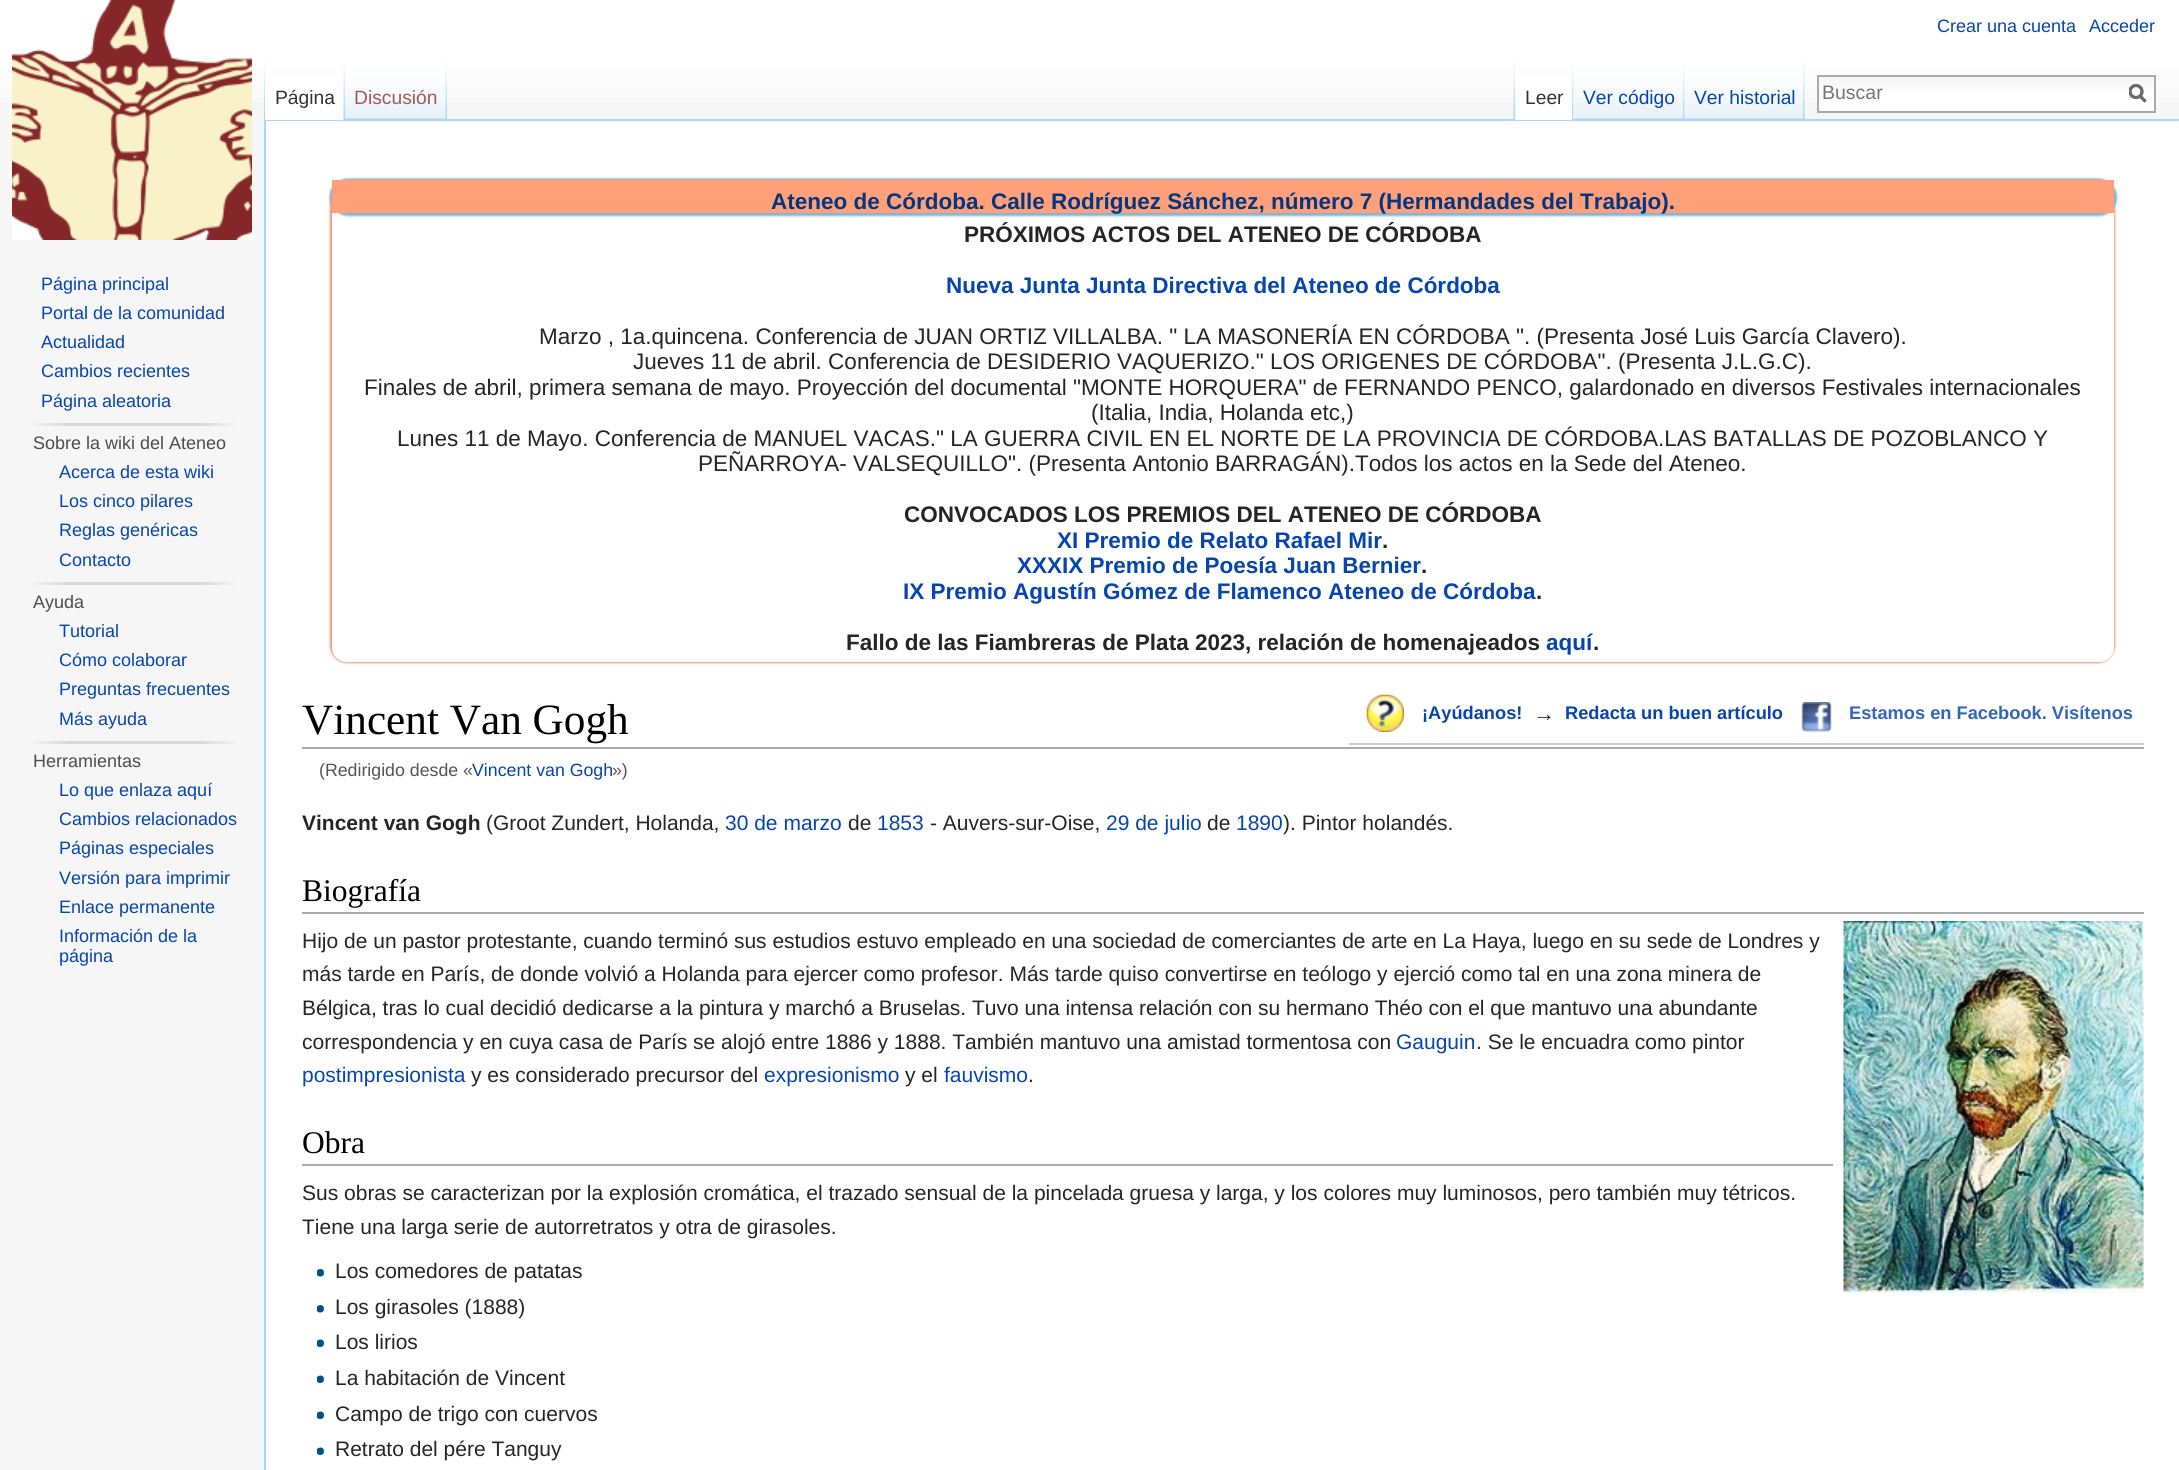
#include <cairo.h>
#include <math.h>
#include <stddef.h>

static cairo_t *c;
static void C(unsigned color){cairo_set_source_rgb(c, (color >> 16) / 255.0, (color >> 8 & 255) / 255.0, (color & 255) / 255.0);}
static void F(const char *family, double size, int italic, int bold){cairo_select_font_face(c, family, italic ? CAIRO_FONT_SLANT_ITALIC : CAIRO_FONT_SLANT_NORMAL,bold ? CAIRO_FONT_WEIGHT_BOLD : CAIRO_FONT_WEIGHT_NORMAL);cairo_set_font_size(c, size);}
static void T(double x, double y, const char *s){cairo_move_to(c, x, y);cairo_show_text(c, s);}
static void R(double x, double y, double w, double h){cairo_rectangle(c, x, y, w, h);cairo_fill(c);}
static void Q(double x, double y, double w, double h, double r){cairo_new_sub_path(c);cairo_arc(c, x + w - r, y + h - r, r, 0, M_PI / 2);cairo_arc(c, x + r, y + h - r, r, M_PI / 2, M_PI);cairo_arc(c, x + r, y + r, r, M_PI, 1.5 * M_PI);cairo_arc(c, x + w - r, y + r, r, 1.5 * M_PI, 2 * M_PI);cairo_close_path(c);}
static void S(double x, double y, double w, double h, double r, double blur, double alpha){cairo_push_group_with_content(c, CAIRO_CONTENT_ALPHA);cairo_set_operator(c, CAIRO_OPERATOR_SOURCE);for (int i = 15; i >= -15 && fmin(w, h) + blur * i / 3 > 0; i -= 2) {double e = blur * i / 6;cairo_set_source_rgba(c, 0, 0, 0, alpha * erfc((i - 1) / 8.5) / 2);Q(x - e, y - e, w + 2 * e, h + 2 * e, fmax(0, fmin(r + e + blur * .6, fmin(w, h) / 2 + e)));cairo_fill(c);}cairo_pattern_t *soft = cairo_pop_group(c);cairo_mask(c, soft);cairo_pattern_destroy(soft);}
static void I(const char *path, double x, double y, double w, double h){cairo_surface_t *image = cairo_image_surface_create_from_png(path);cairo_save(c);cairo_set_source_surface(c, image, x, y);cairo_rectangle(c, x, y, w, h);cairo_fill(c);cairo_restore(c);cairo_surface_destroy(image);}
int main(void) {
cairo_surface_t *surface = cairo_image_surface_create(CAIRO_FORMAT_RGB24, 2179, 1470);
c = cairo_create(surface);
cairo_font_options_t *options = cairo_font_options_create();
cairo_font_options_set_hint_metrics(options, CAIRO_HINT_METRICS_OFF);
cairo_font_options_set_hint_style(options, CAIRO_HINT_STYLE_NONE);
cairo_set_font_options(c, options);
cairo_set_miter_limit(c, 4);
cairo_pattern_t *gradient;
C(0xf6f6f6);
cairo_paint(c);
gradient = cairo_pattern_create_linear(1090,0,1090,120);
cairo_pattern_add_color_stop_rgba(gradient,.5,1,1,1,1);
cairo_pattern_add_color_stop_rgba(gradient,1,0.965,0.965,0.965,1);
cairo_set_source(c,gradient);
cairo_pattern_destroy(gradient);
R(0,0,2179,103);
F("Liberation Sans",18,0,0);
C(0x0645ad);
T(1937,32,"Crear una cuenta");
T(2089,32,"Acceder");
I("1.png",264,60,1,59);
C(0xa7d7f9);
R(264,119,1915,2);
R(264,119,2,1351);
C(0xffffff);
R(265,77,80,43);
I("2.png",343,61,2,59);
F("Liberation Sans",19.25,0,0);
C(0x333333);
T(275,104,"Página");
I("3.png",345,60,102,60);
I("4.png",445,61,2,58);
C(0xa55858);
T(354,104,"Discusión");
I("5.png",1513,60,2,59);
C(0xffffff);
R(1515,77,59,43);
I("6.png",1572,61,2,59);
C(0x333333);
T(1525,104,"Leer");
I("7.png",1573,60,112,60);
I("8.png",1683,61,2,59);
C(0x0645ad);
T(1583,104,"Ver código");
C(0xf3f3f3);
R(1804,60,1,60);
I("9.png",1684,60,121,60);
I("8.png",1803,61,2,59);
C(0x0645ad);
T(1694,104,"Ver historial");
C(0xffffff);
R(1819,89,335,22);
I("10.png",1819,77,335,12);
cairo_rectangle(c,1818,76,337,36);
C(0xaaaaaa);
cairo_stroke(c);
cairo_new_path(c);
cairo_move_to(c,2145.5,101.5);
cairo_line_to(c,2139.5,95.5);
C(0x6c6c6c);
cairo_set_line_width(c,3);
cairo_stroke(c);
cairo_save(c);
cairo_rectangle(c,2129,84,18,20);
cairo_clip(c);
cairo_arc(c,2136,91.5,6,0,2 * M_PI);
cairo_stroke(c);
cairo_restore(c);
F("Liberation Sans",19.5,0,0);
C(0x757575);
T(1822,99,"Buscar");
cairo_new_path(c);
cairo_move_to(c,2145.5,101.5);
cairo_line_to(c,2139.5,95.5);
C(0x6c6c6c);
cairo_stroke(c);
cairo_save(c);
cairo_rectangle(c,2129,84,18,20);
cairo_clip(c);
cairo_arc(c,2136,91.5,6,0,2 * M_PI);
cairo_stroke(c);
cairo_restore(c);
I("11.png",12,0,240,240);
F("Liberation Sans",18,0,0);
C(0x0645ad);
T(41,290,"Página principal");
T(41,319,"Portal de la comunidad");
T(41,348,"Actualidad");
T(41,377,"Cambios recientes");
T(41,407,"Página aleatoria");
I("12.png",32,423,204,3);
C(0x4d4d4d);
T(33,449,"Sobre la wiki del Ateneo");
C(0x0645ad);
T(59,478,"Acerca de esta wiki");
T(59,507,"Los cinco pilares");
T(59,536,"Reglas genéricas");
T(59,566,"Contacto");
I("12.png",32,582,204,3);
C(0x4d4d4d);
T(33,608,"Ayuda");
C(0x0645ad);
T(59,637,"Tutorial");
T(59,666,"Cómo colaborar");
T(59,695,"Preguntas frecuentes");
T(59,725,"Más ayuda");
I("12.png",32,741,204,3);
C(0x4d4d4d);
T(33,767,"Herramientas");
C(0x0645ad);
T(59,796,"Lo que enlaza aquí");
T(59,825,"Cambios relacionados");
T(59,854,"Páginas especiales");
T(59,884,"Versión para imprimir");
T(59,913,"Enlace permanente");
T(59,942,"Información de la");
T(59,962,"página");
C(0xffffff);
R(266,121,1913,1349);
cairo_save(c);
cairo_set_fill_rule(c,CAIRO_FILL_RULE_EVEN_ODD);
cairo_new_path(c);
cairo_move_to(c,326,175);
cairo_line_to(c,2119,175);
cairo_line_to(c,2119,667);
cairo_line_to(c,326,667);
cairo_close_path(c);
cairo_move_to(c,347,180);
cairo_line_to(c,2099,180);
cairo_curve_to(c,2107.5,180,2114,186.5,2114,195);
cairo_line_to(c,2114,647);
cairo_curve_to(c,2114,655.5,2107.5,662,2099,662);
cairo_line_to(c,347,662);
cairo_curve_to(c,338.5,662,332,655.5,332,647);
cairo_line_to(c,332,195);
cairo_curve_to(c,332,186.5,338.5,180,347,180);
cairo_close_path(c);
cairo_clip(c);
C(0xe9967a);
S(330,179,1785,484,17,1,1);
cairo_restore(c);
C(0x7fb5d7);
S(330,179,1787,37,18,1,1);
C(0xffa07a);
R(332,180,1782,33);
F("Liberation Sans",22.5,0,1);
C(0x003780);
T(771,209,"Ateneo de Córdoba. Calle Rodríguez Sánchez, número 7 (Hermandades del Trabajo).");
C(0x252525);
T(964,242,"PRÓXIMOS ACTOS DEL ATENEO DE CÓRDOBA");
C(0x0645ad);
T(946,293,"Nueva Junta Junta Directiva del Ateneo de Córdoba");
F("Liberation Sans",22.5,0,0);
C(0x252525);
T(539,344,"Marzo , 1a.quincena. Conferencia de JUAN ORTIZ VILLALBA. \" LA MASONERÍA EN CÓRDOBA \". (Presenta José Luis García Clavero).");
T(633,369,"Jueves 11 de abril. Conferencia de DESIDERIO VAQUERIZO.\" LOS ORIGENES DE CÓRDOBA\". (Presenta J.L.G.C).");
T(364,395,"Finales de abril, primera semana de mayo. Proyección del documental \"MONTE HORQUERA\" de FERNANDO PENCO, galardonado en diversos Festivales internacionales");
T(1091,420,"(Italia, India, Holanda etc,)");
T(397,446,"Lunes 11 de Mayo. Conferencia de MANUEL VACAS.\" LA GUERRA CIVIL EN EL NORTE DE LA PROVINCIA DE CÓRDOBA.LAS BATALLAS DE POZOBLANCO Y");
T(698,471,"PEÑARROYA- VALSEQUILLO\". (Presenta Antonio BARRAGÁN).Todos los actos en la Sede del Ateneo.");
F("Liberation Sans",22.5,0,1);
T(904,522,"CONVOCADOS LOS PREMIOS DEL ATENEO DE CÓRDOBA");
C(0x0645ad);
T(1057,548,"XI Premio de Relato Rafael Mir");
C(0x252525);
T(1382,548,".");
C(0x0645ad);
T(1017,573,"XXXIX Premio de Poesía Juan Bernier");
C(0x252525);
T(1421,573,".");
C(0x0645ad);
T(903,599,"IX Premio Agustín Gómez de Flamenco Ateneo de Córdoba");
C(0x252525);
T(1536,599,".");
T(846,650,"Fallo de las Fiambreras de Plata 2023, relación de homenajeados");
C(0x0645ad);
T(1546,650,"aquí");
C(0x252525);
T(1593,650,".");
C(0xcccccc);
R(1349,743,795,2);
I("13.png",1366,694,38,38);
F("Liberation Sans",18.25,0,1);
C(0x0645ad);
T(1422,719,"¡Ayúdanos!");
F("Liberation Sans",22,0,1);
C(0x252525);
T(1533,721,"→");
F("Liberation Sans",18.25,0,1);
C(0x0645ad);
T(1565,719,"Redacta un buen artículo");
I("14.png",1801,702,31,30);
C(0x3366bb);
T(1849,719,"Estamos en Facebook. Visítenos");
C(0xaaaaaa);
R(302,747,1842,2);
F("Liberation Serif",43.25,0,0);
C(0x000000);
T(302,734,"Vincent Van Gogh");
F("Liberation Sans",17.75,0,0);
C(0x545454);
T(319,776,"(Redirigido desde «");
C(0x0645ad);
T(472,776,"Vincent van Gogh");
C(0x545454);
T(612,776,"»)");
F("Liberation Sans",21,0,1);
C(0x252525);
T(302,830,"Vincent van Gogh");
F("Liberation Sans",21,0,0);
T(486,830,"(Groot Zundert, Holanda,");
C(0x0645ad);
T(725,830,"30 de marzo");
C(0x252525);
T(848,830,"de");
C(0x0645ad);
T(877,830,"1853");
C(0x252525);
T(930,830,"- Auvers-sur-Oise,");
C(0x0645ad);
T(1106,830,"29 de julio");
C(0x252525);
T(1207,830,"de");
C(0x0645ad);
T(1236,830,"1890");
C(0x252525);
T(1283,830,"). Pintor holandés.");
C(0xaaaaaa);
R(302,912,1842,2);
F("Liberation Serif",31.5,0,0);
C(0x000000);
T(302,901,"Biografía");
F("Liberation Sans",21,0,0);
C(0x252525);
T(302,948,"Hijo de un pastor protestante, cuando terminó sus estudios estuvo empleado en una sociedad de comerciantes de arte en La Haya, luego en su sede de Londres y");
T(302,981,"más tarde en París, de donde volvió a Holanda para ejercer como profesor. Más tarde quiso convertirse en teólogo y ejerció como tal en una zona minera de");
T(302,1015,"Bélgica, tras lo cual decidió dedicarse a la pintura y marchó a Bruselas. Tuvo una intensa relación con su hermano Théo con el que mantuvo una abundante");
T(302,1049,"correspondencia y en cuya casa de París se alojó entre 1886 y 1888. También mantuvo una amistad tormentosa con");
C(0x0645ad);
T(1396,1049,"Gauguin");
C(0x252525);
T(1476,1049,". Se le encuadra como pintor");
C(0x0645ad);
T(302,1082,"postimpresionista");
C(0x252525);
T(471,1082,"y es considerado precursor del");
C(0x0645ad);
T(764,1082,"expresionismo");
C(0x252525);
T(905,1082,"y el");
C(0x0645ad);
T(944,1082,"fauvismo");
C(0x252525);
T(1028,1082,".");
I("15.png",1843,921,301,372);
C(0xaaaaaa);
R(302,1164,1531,2);
F("Liberation Serif",31.5,0,0);
C(0x000000);
T(302,1153,"Obra");
F("Liberation Sans",21,0,0);
C(0x252525);
T(302,1200,"Sus obras se caracterizan por la explosión cromática, el trazado sensual de la pincelada gruesa y larga, y los colores muy luminosos, pero también muy tétricos.");
T(302,1234,"Tiene una larga serie de autorretratos y otra de girasoles.");
I("16.png",317,1269,7,8);
T(335,1278,"Los comedores de patatas");
I("17.png",317,1305,7,8);
T(335,1314,"Los girasoles (1888)");
I("18.png",317,1339,7,8);
T(335,1349,"Los lirios");
I("18.png",317,1375,7,8);
T(335,1385,"La habitación de Vincent");
I("18.png",317,1411,7,8);
T(335,1421,"Campo de trigo con cuervos");
I("18.png",317,1447,7,8);
T(335,1456,"Retrato del pére Tanguy");
cairo_surface_write_to_png(surface, "o.png");
cairo_font_options_destroy(options);
cairo_destroy(c);
cairo_surface_destroy(surface);
return 0;
}
